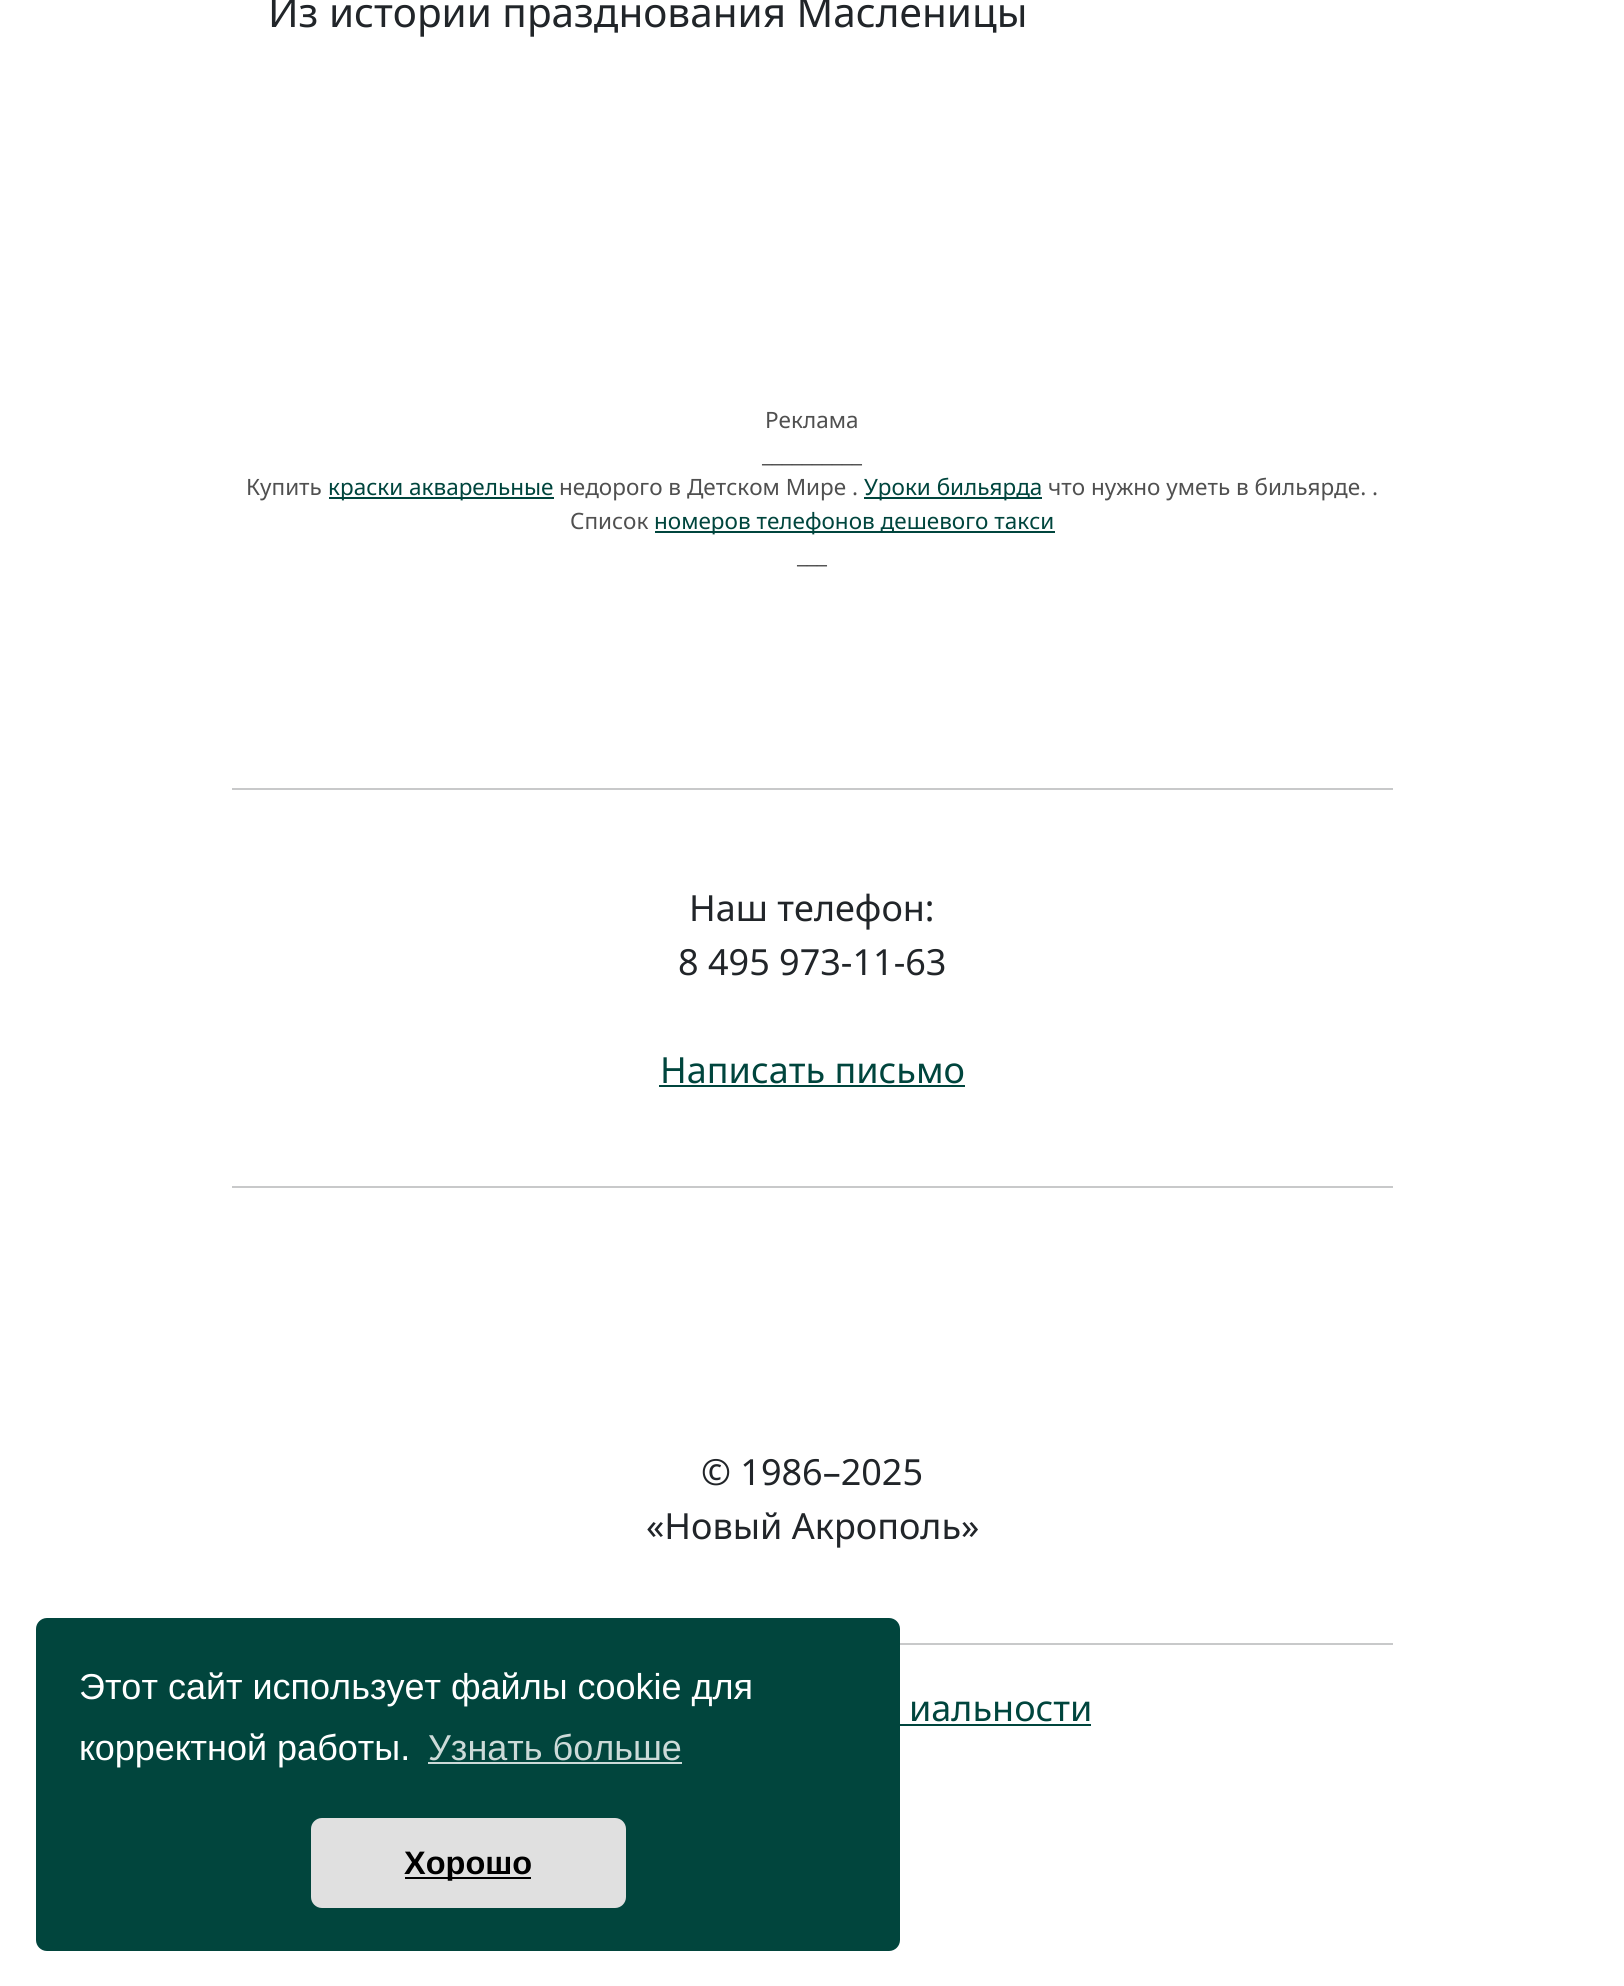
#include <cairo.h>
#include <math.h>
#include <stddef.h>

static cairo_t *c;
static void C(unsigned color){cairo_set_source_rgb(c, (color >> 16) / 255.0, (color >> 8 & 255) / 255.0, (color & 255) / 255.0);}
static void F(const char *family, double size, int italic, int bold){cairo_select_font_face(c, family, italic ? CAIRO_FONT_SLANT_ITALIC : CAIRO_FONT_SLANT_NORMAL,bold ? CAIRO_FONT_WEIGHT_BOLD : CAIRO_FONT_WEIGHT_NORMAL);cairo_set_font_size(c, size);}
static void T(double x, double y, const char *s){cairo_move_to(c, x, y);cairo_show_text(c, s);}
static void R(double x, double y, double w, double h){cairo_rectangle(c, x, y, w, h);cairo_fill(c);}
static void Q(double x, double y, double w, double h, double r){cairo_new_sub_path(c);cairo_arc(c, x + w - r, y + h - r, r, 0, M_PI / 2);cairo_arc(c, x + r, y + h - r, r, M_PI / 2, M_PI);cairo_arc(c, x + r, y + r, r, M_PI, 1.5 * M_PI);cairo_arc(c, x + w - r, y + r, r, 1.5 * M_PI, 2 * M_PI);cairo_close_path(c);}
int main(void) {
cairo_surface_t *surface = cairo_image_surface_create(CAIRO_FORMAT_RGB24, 1624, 1986);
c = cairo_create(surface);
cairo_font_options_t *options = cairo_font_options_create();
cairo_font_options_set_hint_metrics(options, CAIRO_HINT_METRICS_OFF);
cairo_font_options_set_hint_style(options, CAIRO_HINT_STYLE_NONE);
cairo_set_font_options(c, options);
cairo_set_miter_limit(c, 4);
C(0xffffff);
cairo_paint(c);
F("Noto Sans",40.5,0,0);
C(0x212529);
T(268,27,"Из истории празднования Масленицы");
F("Noto Sans",22.5,0,0);
C(0x505050);
T(765,428,"Реклама");
T(762,462,"__________");
T(246,495,"Купить");
C(0x00453d);
R(329,497,225,2);
T(328,495,"краски акварельные");
C(0x505050);
T(559,495,"недорого в Детском Мире .");
C(0x00453d);
R(864,497,178,2);
T(864,495,"Уроки бильярда");
C(0x505050);
T(1048,495,"что нужно уметь в бильярде. .");
T(570,529,"Список");
C(0x00453d);
R(655,531,400,2);
T(654,529,"номеров телефонов дешевого такси");
C(0x505050);
T(797,563,"___");
C(0xc8c9ca);
R(232,788,1161,2);
F("Noto Sans",36,0,0);
C(0x212529);
T(689,921,"Наш телефон:");
T(678,975,"8 495 973-11-63");
C(0x00453d);
T(660,1083,"Написать письмо");
R(659,1085,306,2);
C(0xc8c9ca);
R(232,1186,1161,2);
C(0x212529);
T(701,1485,"© 1986–2025");
T(646,1539,"«Новый Акрополь»");
C(0xc8c9ca);
R(900,1643,493,2);
C(0x00453d);
T(909,1721,"иальности");
R(900,1724,191,2);
C(0x01453d);
Q(36,1618,864,333,11);
cairo_fill(c);
F("Liberation Sans",36,0,0);
C(0xffffff);
T(79,1699,"Этот сайт использует файлы cookie для");
T(79,1760,"корректной работы.");
C(0xccdad8);
T(428,1760,"Узнать больше");
R(428,1762,254,2);
C(0xe0e0e0);
Q(311,1818,315,90,11);
cairo_fill(c);
C(0x000000);
R(405,1877,126,2);
F("Liberation Sans",32.5,0,1);
T(404,1874,"Хорошо");
cairo_surface_write_to_png(surface, "o.png");
cairo_font_options_destroy(options);
cairo_destroy(c);
cairo_surface_destroy(surface);
return 0;
}
